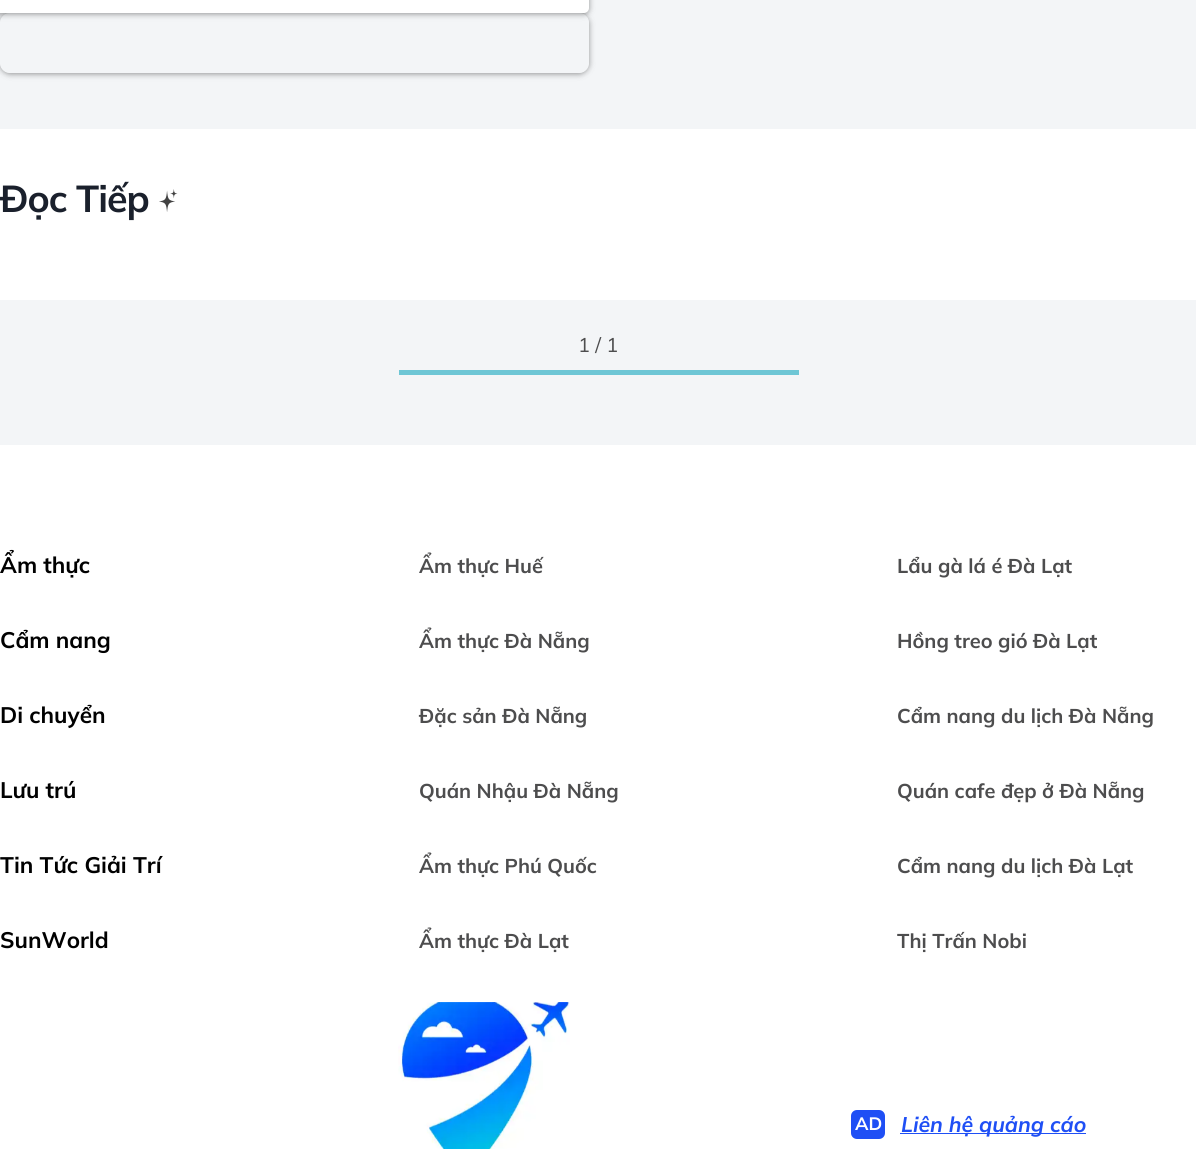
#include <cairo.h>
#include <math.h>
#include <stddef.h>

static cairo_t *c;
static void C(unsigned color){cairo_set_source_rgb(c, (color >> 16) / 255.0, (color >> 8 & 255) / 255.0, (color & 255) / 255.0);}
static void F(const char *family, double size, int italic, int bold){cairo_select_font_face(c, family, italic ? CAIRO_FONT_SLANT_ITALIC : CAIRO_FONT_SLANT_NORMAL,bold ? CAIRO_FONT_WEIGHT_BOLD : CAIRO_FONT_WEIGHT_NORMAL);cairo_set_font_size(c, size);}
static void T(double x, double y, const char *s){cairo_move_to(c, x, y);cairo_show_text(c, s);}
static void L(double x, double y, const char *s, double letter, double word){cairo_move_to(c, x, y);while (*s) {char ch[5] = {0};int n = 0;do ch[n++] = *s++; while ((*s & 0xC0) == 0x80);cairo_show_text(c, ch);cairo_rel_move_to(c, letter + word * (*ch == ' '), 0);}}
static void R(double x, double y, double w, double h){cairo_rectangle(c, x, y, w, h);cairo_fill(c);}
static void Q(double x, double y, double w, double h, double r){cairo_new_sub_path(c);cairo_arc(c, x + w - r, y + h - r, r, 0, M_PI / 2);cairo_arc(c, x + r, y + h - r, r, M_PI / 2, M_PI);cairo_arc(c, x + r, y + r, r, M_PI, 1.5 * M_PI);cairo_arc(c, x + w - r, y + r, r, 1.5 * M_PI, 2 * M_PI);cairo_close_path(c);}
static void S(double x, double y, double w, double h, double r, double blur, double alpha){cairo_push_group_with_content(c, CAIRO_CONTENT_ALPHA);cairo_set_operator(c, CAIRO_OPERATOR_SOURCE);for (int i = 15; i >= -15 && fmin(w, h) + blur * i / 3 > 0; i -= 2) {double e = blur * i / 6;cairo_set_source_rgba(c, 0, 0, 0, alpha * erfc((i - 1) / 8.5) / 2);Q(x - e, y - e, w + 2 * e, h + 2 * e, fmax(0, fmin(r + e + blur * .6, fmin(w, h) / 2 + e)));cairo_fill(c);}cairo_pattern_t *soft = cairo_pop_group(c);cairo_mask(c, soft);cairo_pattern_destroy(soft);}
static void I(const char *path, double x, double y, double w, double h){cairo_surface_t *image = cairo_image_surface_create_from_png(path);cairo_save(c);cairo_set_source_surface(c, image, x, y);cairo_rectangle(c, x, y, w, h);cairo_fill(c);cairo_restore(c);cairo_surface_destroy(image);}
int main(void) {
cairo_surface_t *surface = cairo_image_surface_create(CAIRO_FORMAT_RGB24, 1196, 1149);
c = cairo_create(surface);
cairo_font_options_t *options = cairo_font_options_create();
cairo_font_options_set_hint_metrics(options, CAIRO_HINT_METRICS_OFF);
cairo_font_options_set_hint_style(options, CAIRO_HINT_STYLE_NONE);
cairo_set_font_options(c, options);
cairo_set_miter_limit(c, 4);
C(0xffffff);
cairo_paint(c);
C(0xf3f5f7);
R(0,0,1196,129);
cairo_save(c);
cairo_set_fill_rule(c,CAIRO_FILL_RULE_EVEN_ODD);
cairo_new_path(c);
cairo_move_to(c,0,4);
cairo_line_to(c,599,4);
cairo_line_to(c,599,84);
cairo_line_to(c,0,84);
cairo_close_path(c);
cairo_move_to(c,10,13);
cairo_line_to(c,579,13);
cairo_curve_to(c,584.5,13,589,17.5,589,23);
cairo_line_to(c,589,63);
cairo_curve_to(c,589,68.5,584.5,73,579,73);
cairo_line_to(c,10,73);
cairo_curve_to(c,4.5,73,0,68.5,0,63);
cairo_line_to(c,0,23);
cairo_curve_to(c,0,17.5,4.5,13,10,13);
cairo_close_path(c);
cairo_clip(c);
C(0x000000);
S(0,14,589,60,10,3,.4);
cairo_restore(c);
C(0x000000);
S(-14,-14,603,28,5,3,.4);
C(0xffffff);
Q(-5,-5,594,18,5);
cairo_fill(c);
F("Mulish",37.5,0,1);
C(0x1a202c);
L(0,212,"Đọc Tiếp",-1,0);
I("1.png",159,189,19,23);
C(0xf3f5f7);
R(0,300,1196,145);
F("Mulish",20,0,0);
C(0x4d4d4e);
T(578,352,"1 / 1");
C(0x6ec6d5);
R(399,370,400,5);
F("Mulish",22.5,0,1);
C(0x000000);
T(0,573,"Ẩm thực");
T(0,648,"Cẩm nang");
T(0,723,"Di chuyển");
T(0,798,"Lưu trú");
T(0,873,"Tin Tức Giải Trí");
T(0,948,"SunWorld");
F("Mulish",20,0,1);
C(0x4d4d4e);
T(419,573,"Ẩm thực Huế");
T(419,648,"Ẩm thực Đà Nẵng");
T(419,723,"Đặc sản Đà Nẵng");
T(419,798,"Quán Nhậu Đà Nẵng");
T(419,873,"Ẩm thực Phú Quốc");
T(419,948,"Ẩm thực Đà Lạt");
T(897,573,"Lẩu gà lá é Đà Lạt");
T(897,648,"Hồng treo gió Đà Lạt");
T(897,723,"Cẩm nang du lịch Đà Nẵng");
T(897,798,"Quán cafe đẹp ở Đà Nẵng");
T(897,873,"Cẩm nang du lịch Đà Lạt");
T(897,948,"Thị Trấn Nobi");
I("2.png",398,1002,172,147);
C(0x1f4ff5);
Q(851,1110,34,29,6);
cairo_fill(c);
F("Mulish",18,0,1);
C(0xffffff);
T(855,1130,"AD");
C(0x1f4ff5);
R(900,1133,186,1);
F("Mulish",21.25,1,1);
T(901,1132,"Liên hệ quảng cáo");
cairo_surface_write_to_png(surface, "o.png");
cairo_font_options_destroy(options);
cairo_destroy(c);
cairo_surface_destroy(surface);
return 0;
}
